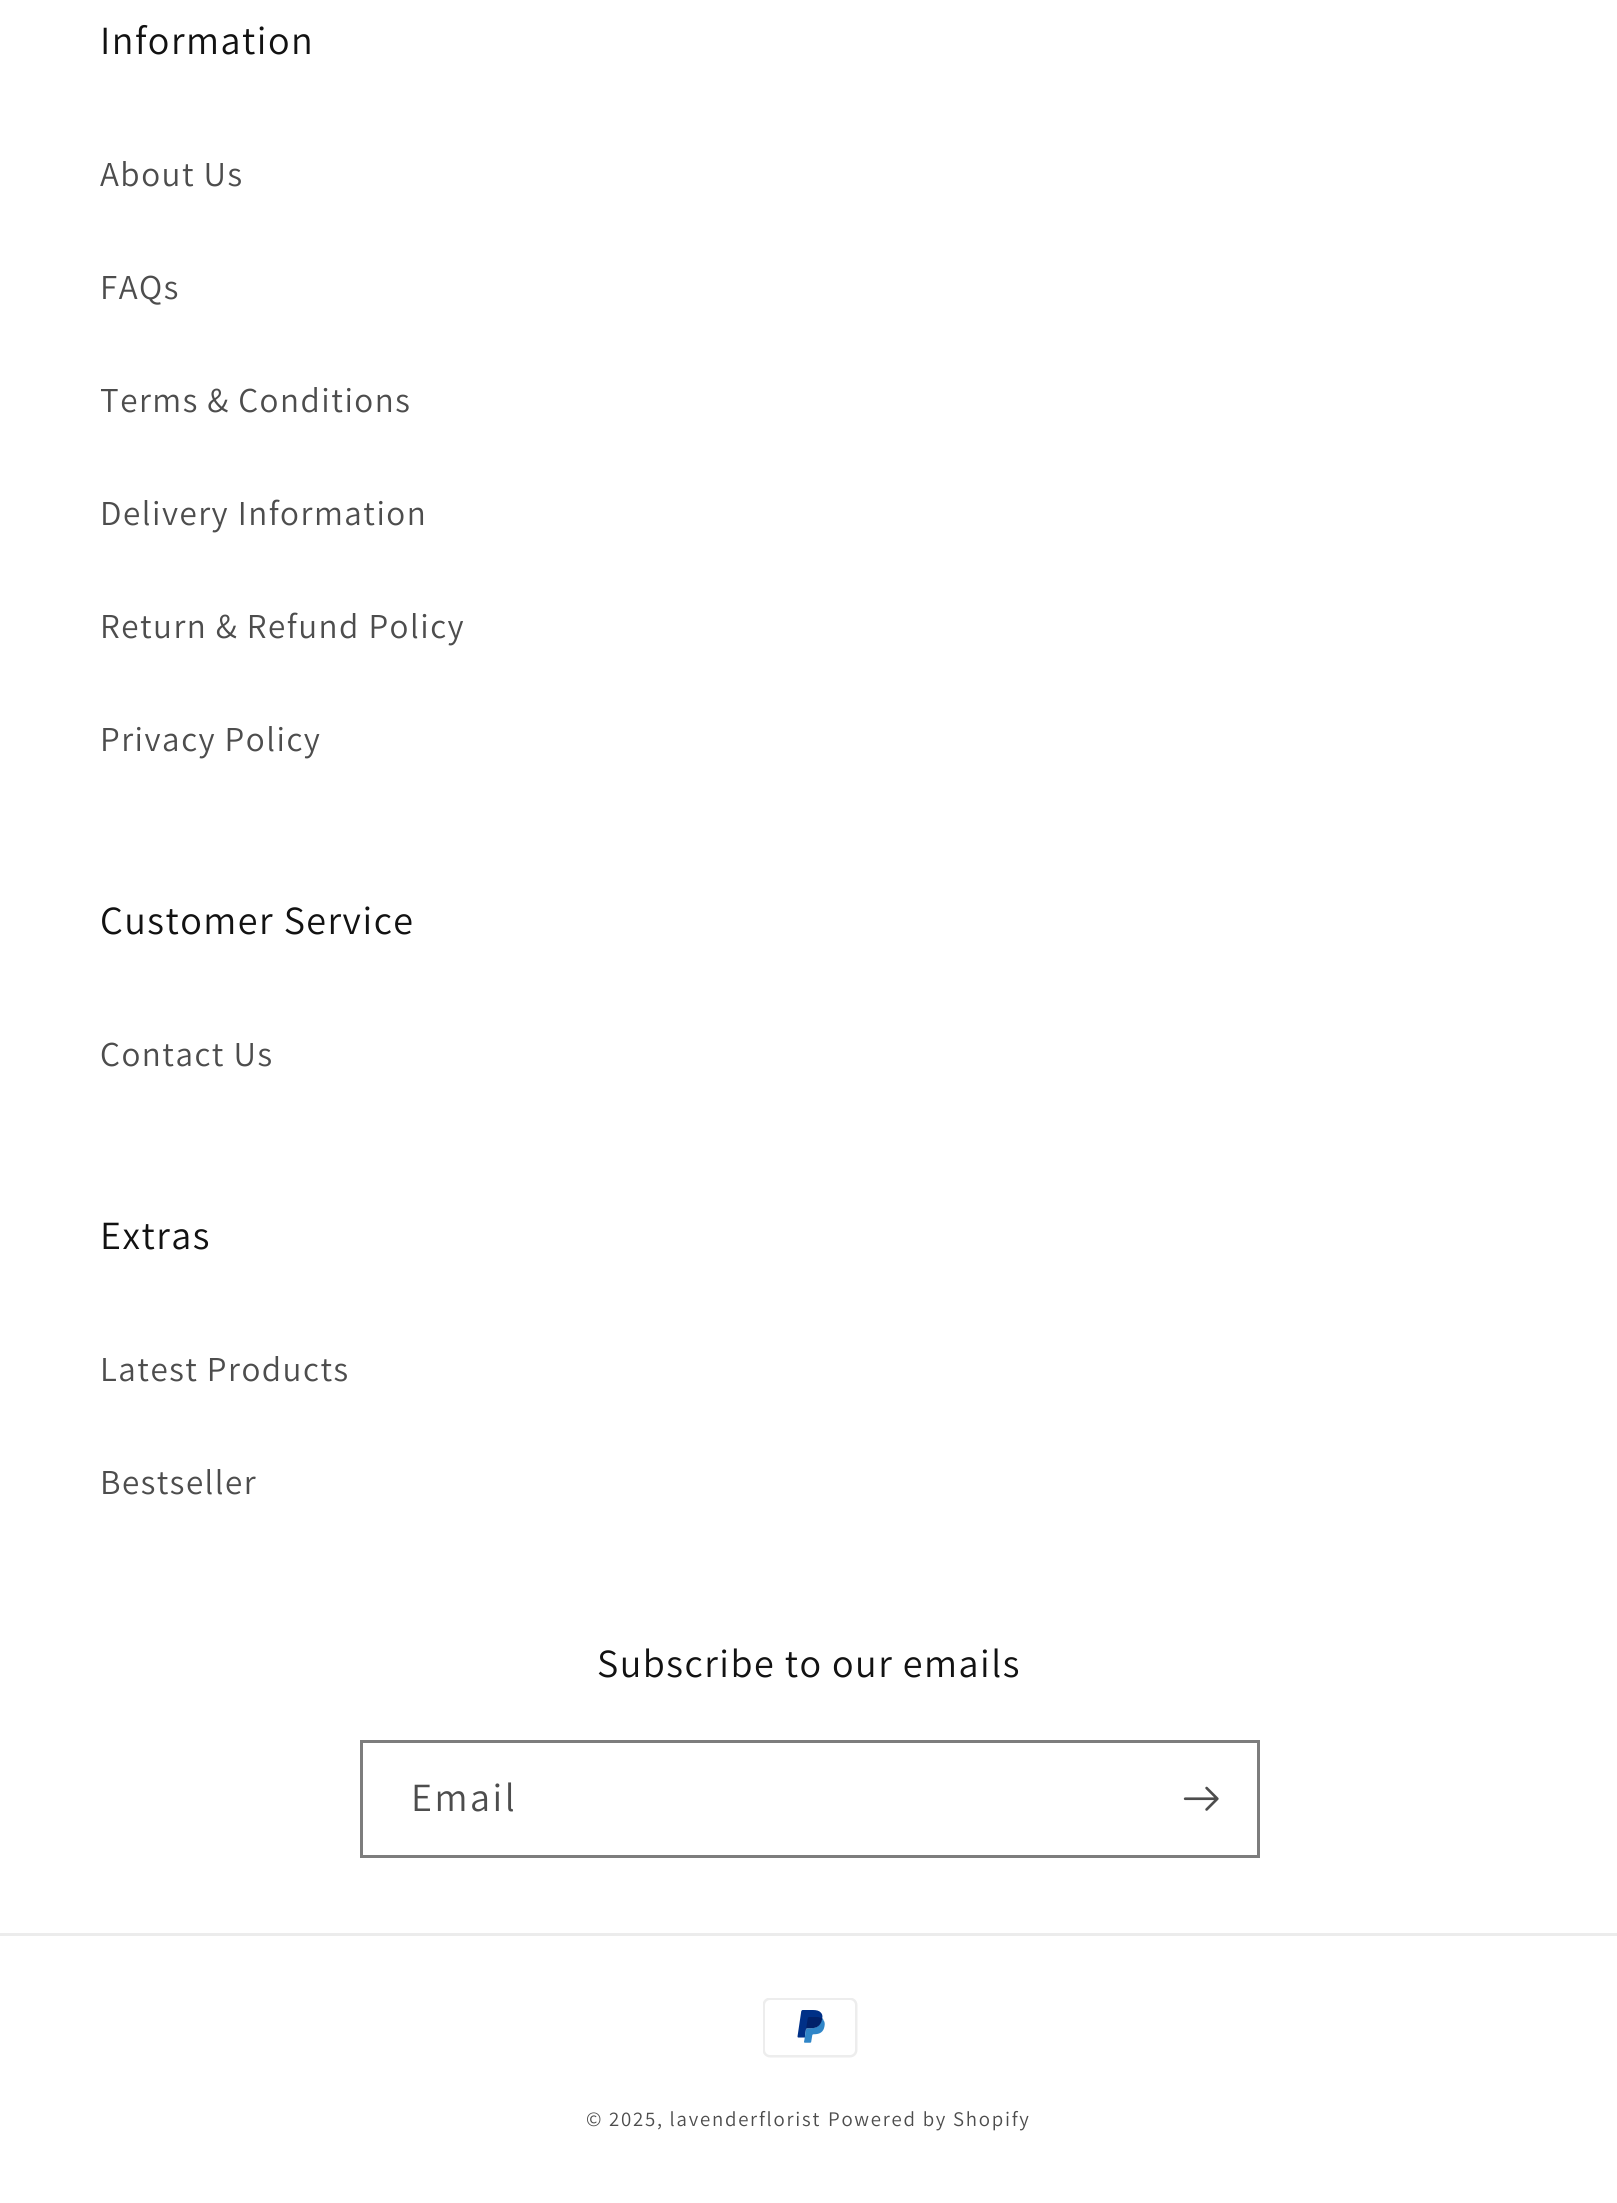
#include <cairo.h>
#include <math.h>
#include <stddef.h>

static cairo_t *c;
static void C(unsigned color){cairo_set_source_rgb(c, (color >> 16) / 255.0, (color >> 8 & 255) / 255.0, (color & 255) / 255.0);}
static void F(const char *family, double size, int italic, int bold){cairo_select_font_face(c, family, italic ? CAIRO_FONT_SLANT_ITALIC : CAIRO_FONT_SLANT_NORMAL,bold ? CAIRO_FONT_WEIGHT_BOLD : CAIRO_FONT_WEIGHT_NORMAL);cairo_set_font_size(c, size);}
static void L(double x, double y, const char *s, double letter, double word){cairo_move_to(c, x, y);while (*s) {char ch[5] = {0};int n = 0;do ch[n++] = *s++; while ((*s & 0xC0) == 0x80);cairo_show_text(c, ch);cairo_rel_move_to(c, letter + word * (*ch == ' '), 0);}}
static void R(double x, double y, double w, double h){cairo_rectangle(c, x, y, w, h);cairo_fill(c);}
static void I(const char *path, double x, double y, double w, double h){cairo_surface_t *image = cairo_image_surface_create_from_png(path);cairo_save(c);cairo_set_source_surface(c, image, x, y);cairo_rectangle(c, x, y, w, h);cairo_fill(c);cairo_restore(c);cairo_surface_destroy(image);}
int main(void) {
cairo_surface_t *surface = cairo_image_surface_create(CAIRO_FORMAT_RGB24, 1617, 2203);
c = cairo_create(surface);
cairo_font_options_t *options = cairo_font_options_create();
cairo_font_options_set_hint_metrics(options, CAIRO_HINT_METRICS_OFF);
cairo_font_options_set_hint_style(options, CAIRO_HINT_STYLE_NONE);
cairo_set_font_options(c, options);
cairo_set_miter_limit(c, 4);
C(0xffffff);
cairo_paint(c);
F("Assistant",40,0,0);
C(0x121212);
L(100,54,"Information",1.5,0);
F("Assistant",35,0,0);
C(0x4d4d4d);
L(100,186,"About Us",1.5,0);
L(100,299,"FAQs",1.5,0);
L(100,412,"Terms & Conditions",1.5,0);
L(100,525,"Delivery Information",1.5,0);
L(100,638,"Return & Refund Policy",1.5,0);
L(100,751,"Privacy Policy",1.5,0);
F("Assistant",40,0,0);
C(0x121212);
L(100,934,"Customer Service",1.5,0);
F("Assistant",35,0,0);
C(0x4d4d4d);
L(100,1066,"Contact Us",1.5,0);
F("Assistant",40,0,0);
C(0x121212);
L(100,1249,"Extras",1.5,0);
F("Assistant",35,0,0);
C(0x4d4d4d);
L(100,1381,"Latest Products",1.5,0);
L(100,1494,"Bestseller",1.5,0);
F("Assistant",40,0,0);
C(0x121212);
L(597,1677,"Subscribe to our emails",1.5,0);
cairo_rectangle(c,361.5,1741.5,897,115);
C(0x7d7d7d);
cairo_set_line_width(c,3);
cairo_stroke(c);
C(0x4d4d4d);
L(411,1811,"Email",2.5,0);
I("1.png",1183,1786,36,25);
C(0xececec);
R(0,1933,1617,3);
I("2.png",763,1998,95,60);
F("Assistant",20.75,0,0);
C(0x4d4d4d);
L(586,2126,"© 2025, lavenderflorist",1.75,0);
L(828,2126,"Powered by Shopify",1.75,0);
cairo_surface_write_to_png(surface, "o.png");
cairo_font_options_destroy(options);
cairo_destroy(c);
cairo_surface_destroy(surface);
return 0;
}
